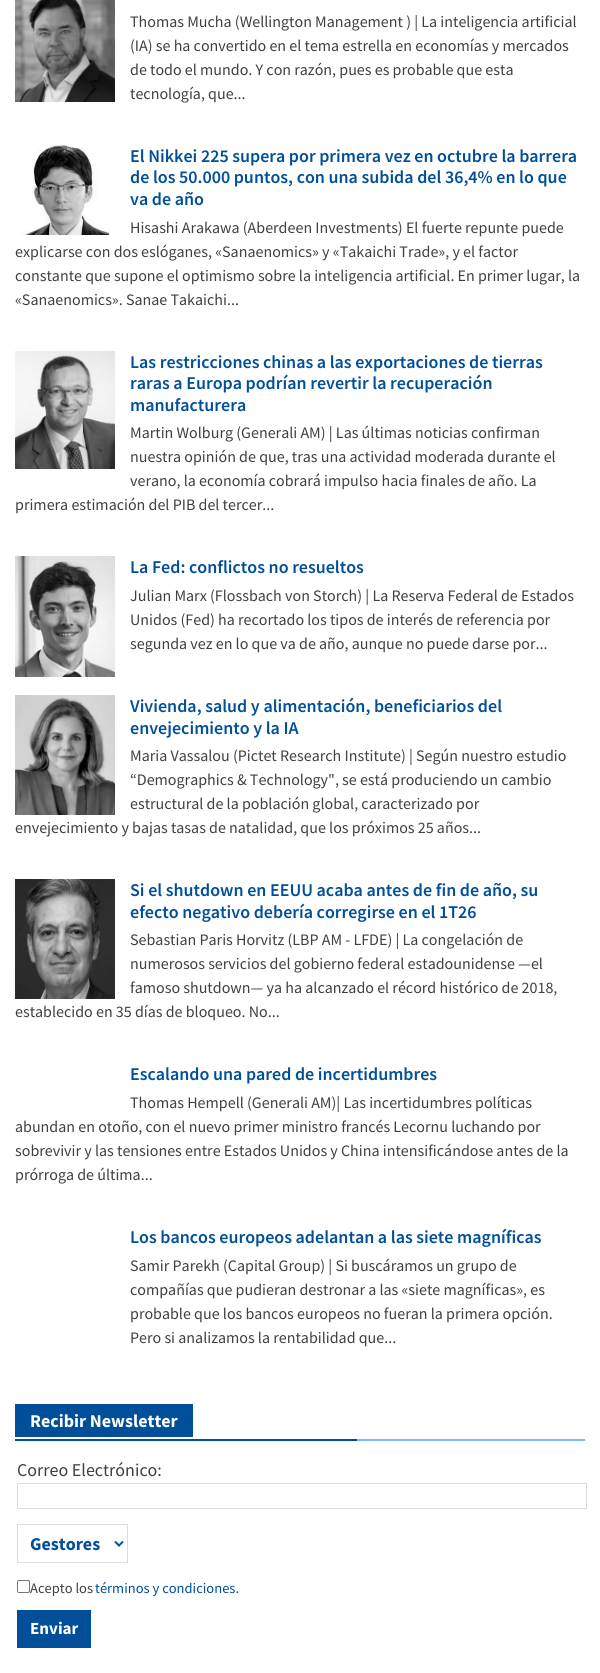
#include <cairo.h>
#include <math.h>
#include <stddef.h>

static cairo_t *c;
static void C(unsigned color){cairo_set_source_rgb(c, (color >> 16) / 255.0, (color >> 8 & 255) / 255.0, (color & 255) / 255.0);}
static void F(const char *family, double size, int italic, int bold){cairo_select_font_face(c, family, italic ? CAIRO_FONT_SLANT_ITALIC : CAIRO_FONT_SLANT_NORMAL,bold ? CAIRO_FONT_WEIGHT_BOLD : CAIRO_FONT_WEIGHT_NORMAL);cairo_set_font_size(c, size);}
static void T(double x, double y, const char *s){cairo_move_to(c, x, y);cairo_show_text(c, s);}
static void R(double x, double y, double w, double h){cairo_rectangle(c, x, y, w, h);cairo_fill(c);}
static void Q(double x, double y, double w, double h, double r){cairo_new_sub_path(c);cairo_arc(c, x + w - r, y + h - r, r, 0, M_PI / 2);cairo_arc(c, x + r, y + h - r, r, M_PI / 2, M_PI);cairo_arc(c, x + r, y + r, r, M_PI, 1.5 * M_PI);cairo_arc(c, x + w - r, y + r, r, 1.5 * M_PI, 2 * M_PI);cairo_close_path(c);}
static void I(const char *path, double x, double y, double w, double h){cairo_surface_t *image = cairo_image_surface_create_from_png(path);cairo_save(c);cairo_set_source_surface(c, image, x, y);cairo_rectangle(c, x, y, w, h);cairo_fill(c);cairo_restore(c);cairo_surface_destroy(image);}
int main(void) {
cairo_surface_t *surface = cairo_image_surface_create(CAIRO_FORMAT_RGB24, 600, 1673);
c = cairo_create(surface);
cairo_font_options_t *options = cairo_font_options_create();
cairo_font_options_set_hint_metrics(options, CAIRO_HINT_METRICS_OFF);
cairo_font_options_set_hint_style(options, CAIRO_HINT_STYLE_NONE);
cairo_set_font_options(c, options);
cairo_set_miter_limit(c, 4);
C(0xffffff);
cairo_paint(c);
I("1.png",15,0,100,102);
F("Source Sans Pro",16,0,0);
C(0x404040);
T(130,27,"Thomas Mucha (Wellington Management ) | La inteligencia artificial");
T(130,51,"(IA) se ha convertido en el tema estrella en economías y mercados");
T(130,75,"de todo el mundo. Y con razón, pues es probable que esta");
T(130,99,"tecnología, que...");
I("2.png",21,145,89,90);
F("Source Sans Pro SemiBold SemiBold",18,0,0);
C(0x004f98);
T(130,162,"El Nikkei 225 supera por primera vez en octubre la barrera");
T(130,183,"de los 50.000 puntos, con una subida del 36,4% en lo que");
T(130,205,"va de año");
F("Source Sans Pro",16,0,0);
C(0x404040);
T(130,233,"Hisashi Arakawa (Aberdeen Investments) El fuerte repunte puede");
T(15,257,"explicarse con dos eslóganes, «Sanaenomics» y «Takaichi Trade», y el factor");
T(15,281,"constante que supone el optimismo sobre la inteligencia artificial. En primer lugar, la");
T(15,305,"«Sanaenomics». Sanae Takaichi...");
I("3.png",15,351,100,118);
F("Source Sans Pro SemiBold SemiBold",18,0,0);
C(0x004f98);
T(130,368,"Las restricciones chinas a las exportaciones de tierras");
T(130,389,"raras a Europa podrían revertir la recuperación");
T(130,411,"manufacturera");
F("Source Sans Pro",16,0,0);
C(0x404040);
T(130,438,"Martin Wolburg (Generali AM) | Las últimas noticias confirman");
T(130,462,"nuestra opinión de que, tras una actividad moderada durante el");
T(130,486,"verano, la economía cobrará impulso hacia finales de año. La");
T(15,510,"primera estimación del PIB del tercer...");
I("4.png",15,556,100,121);
F("Source Sans Pro SemiBold SemiBold",18,0,0);
C(0x004f98);
T(130,573,"La Fed: conflictos no resueltos");
F("Source Sans Pro",16,0,0);
C(0x404040);
T(130,601,"Julian Marx (Flossbach von Storch) | La Reserva Federal de Estados");
T(130,625,"Unidos (Fed) ha recortado los tipos de interés de referencia por");
T(130,649,"segunda vez en lo que va de año, aunque no puede darse por...");
I("5.png",15,695,100,120);
F("Source Sans Pro SemiBold SemiBold",18,0,0);
C(0x004f98);
T(130,712,"Vivienda, salud y alimentación, beneficiarios del");
T(130,734,"envejecimiento y la IA");
F("Source Sans Pro",16,0,0);
C(0x404040);
T(130,761,"Maria Vassalou (Pictet Research Institute) | Según nuestro estudio");
T(130,785,"“Demographics & Technology\", se está produciendo un cambio");
T(130,809,"estructural de la población global, caracterizado por");
T(15,833,"envejecimiento y bajas tasas de natalidad, que los próximos 25 años...");
I("6.png",15,879,100,120);
F("Source Sans Pro SemiBold SemiBold",18,0,0);
C(0x004f98);
T(130,896,"Si el shutdown en EEUU acaba antes de fin de año, su");
T(130,918,"efecto negativo debería corregirse en el 1T26");
F("Source Sans Pro",16,0,0);
C(0x404040);
T(130,945,"Sebastian Paris Horvitz (LBP AM - LFDE) | La congelación de");
T(130,969,"numerosos servicios del gobierno federal estadounidense —el");
T(130,993,"famoso shutdown— ya ha alcanzado el récord histórico de 2018,");
T(15,1017,"establecido en 35 días de bloqueo. No...");
F("Source Sans Pro SemiBold SemiBold",18,0,0);
C(0x004f98);
T(130,1080,"Escalando una pared de incertidumbres");
F("Source Sans Pro",16,0,0);
C(0x404040);
T(130,1108,"Thomas Hempell (Generali AM)| Las incertidumbres políticas");
T(15,1132,"abundan en otoño, con el nuevo primer ministro francés Lecornu luchando por");
T(15,1156,"sobrevivir y las tensiones entre Estados Unidos y China intensificándose antes de la");
T(15,1180,"prórroga de última...");
F("Source Sans Pro SemiBold SemiBold",18,0,0);
C(0x004f98);
T(130,1243,"Los bancos europeos adelantan a las siete magníficas");
F("Source Sans Pro",16,0,0);
C(0x404040);
T(130,1271,"Samir Parekh (Capital Group) | Si buscáramos un grupo de");
T(130,1295,"compañías que pudieran destronar a las «siete magníficas», es");
T(130,1319,"probable que los bancos europeos no fueran la primera opción.");
T(130,1343,"Pero si analizamos la rentabilidad que...");
C(0x7cbaf5);
R(357,1439,228,2);
C(0x004f98);
R(15,1404,178,33);
F("Source Sans Pro",18,0,1);
C(0xffffff);
T(30,1427,"Recibir Newsletter");
C(0x004f98);
R(15,1439,342,2);
F("Source Sans Pro",18,0,0);
C(0x404040);
T(17,1476,"Correo Electrónico:");
cairo_rectangle(c,17.5,1483.5,569,25);
C(0xdddddd);
cairo_set_line_width(c,1);
cairo_stroke(c);
cairo_rectangle(c,17.5,1524.5,110,38);
cairo_stroke(c);
cairo_new_path(c);
cairo_move_to(c,115,1541.5);
cairo_line_to(c,119,1545.5);
cairo_line_to(c,123,1541.5);
C(0x004f98);
cairo_set_line_width(c,2);
cairo_stroke(c);
F("Source Sans Pro",18,0,1);
T(30,1550,"Gestores");
Q(17.5,1580.5,12,12,1.5);
C(0x767676);
cairo_set_line_width(c,1);
cairo_stroke(c);
F("Source Sans Pro",14.5,0,0);
C(0x404040);
T(30,1593,"Acepto los");
C(0x004f98);
T(95,1593,"términos y condiciones.");
R(17,1610,74,38);
F("Source Sans Pro",17,0,1);
C(0xffffff);
T(30,1634,"Enviar");
cairo_surface_write_to_png(surface, "o.png");
cairo_font_options_destroy(options);
cairo_destroy(c);
cairo_surface_destroy(surface);
return 0;
}
